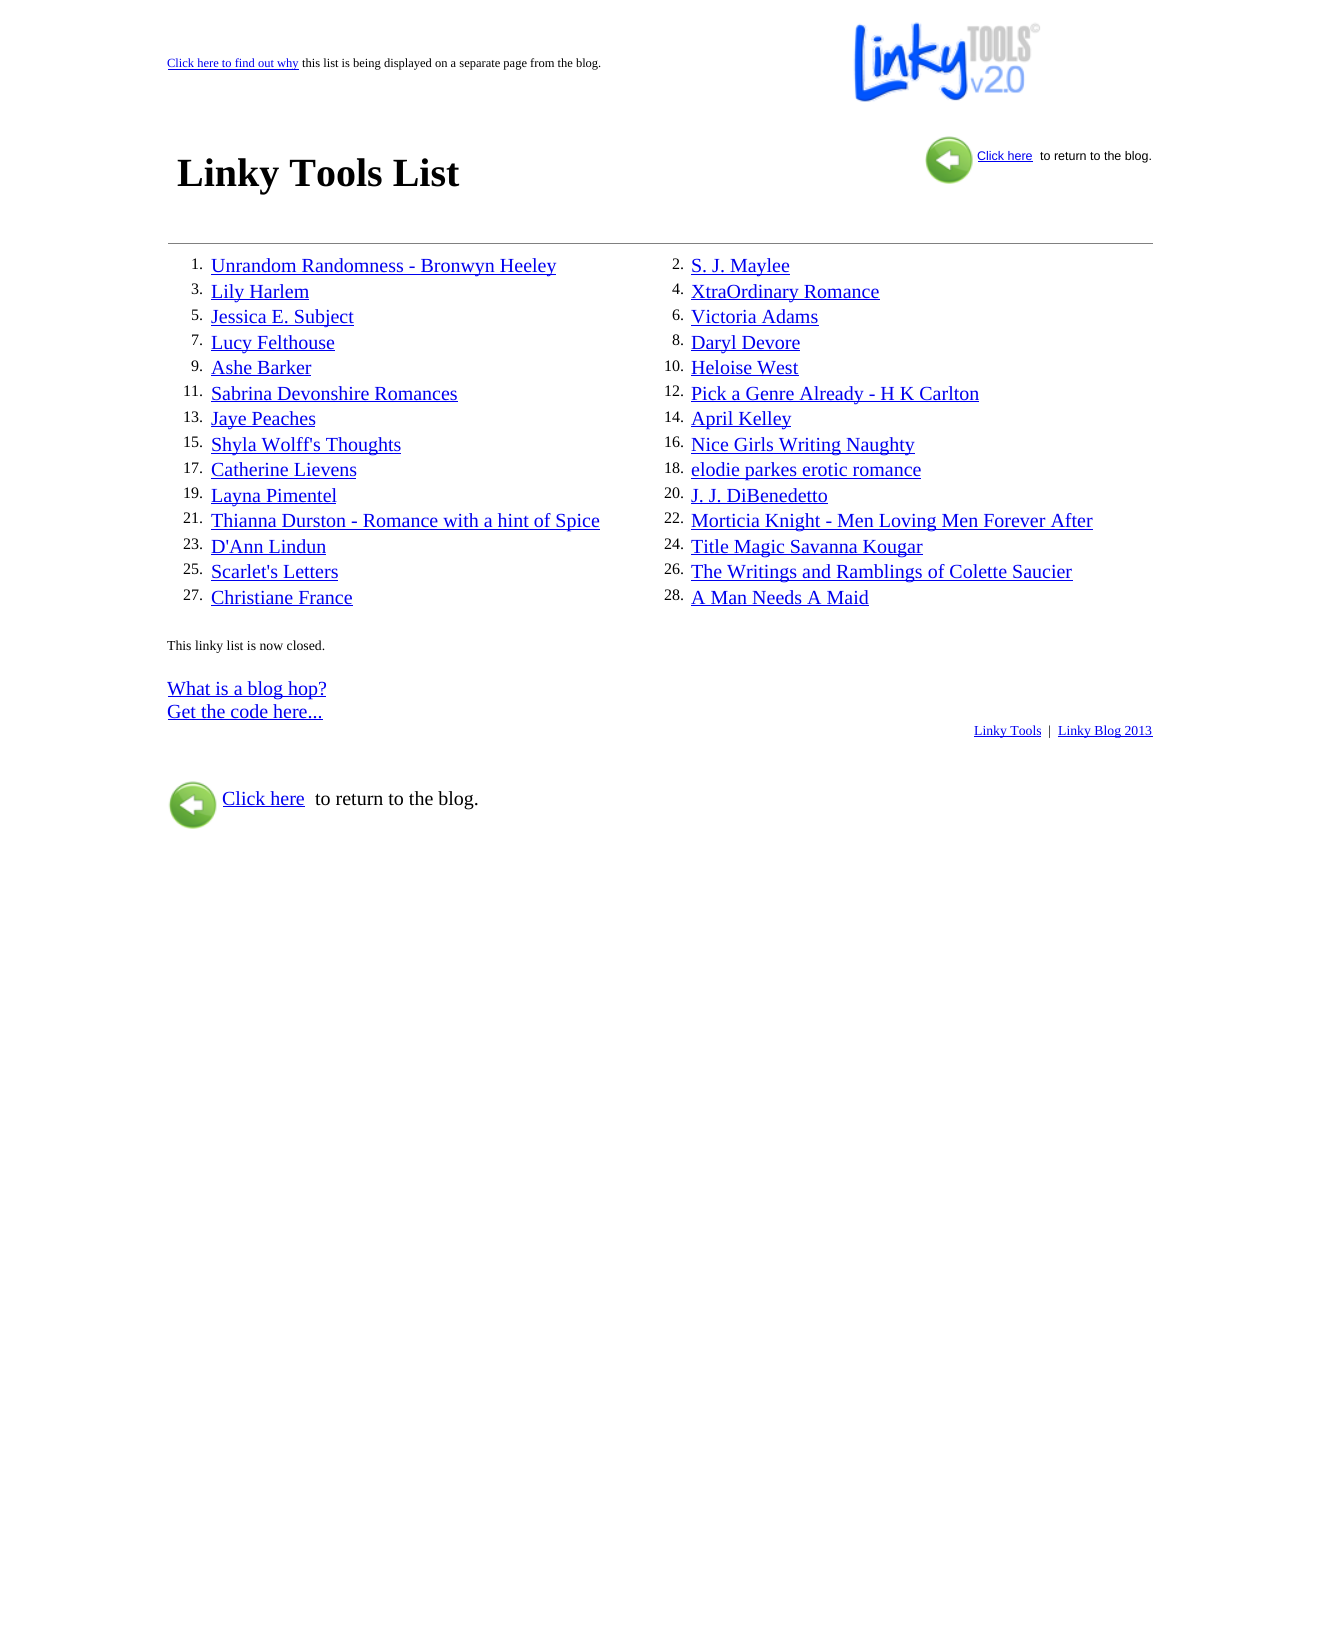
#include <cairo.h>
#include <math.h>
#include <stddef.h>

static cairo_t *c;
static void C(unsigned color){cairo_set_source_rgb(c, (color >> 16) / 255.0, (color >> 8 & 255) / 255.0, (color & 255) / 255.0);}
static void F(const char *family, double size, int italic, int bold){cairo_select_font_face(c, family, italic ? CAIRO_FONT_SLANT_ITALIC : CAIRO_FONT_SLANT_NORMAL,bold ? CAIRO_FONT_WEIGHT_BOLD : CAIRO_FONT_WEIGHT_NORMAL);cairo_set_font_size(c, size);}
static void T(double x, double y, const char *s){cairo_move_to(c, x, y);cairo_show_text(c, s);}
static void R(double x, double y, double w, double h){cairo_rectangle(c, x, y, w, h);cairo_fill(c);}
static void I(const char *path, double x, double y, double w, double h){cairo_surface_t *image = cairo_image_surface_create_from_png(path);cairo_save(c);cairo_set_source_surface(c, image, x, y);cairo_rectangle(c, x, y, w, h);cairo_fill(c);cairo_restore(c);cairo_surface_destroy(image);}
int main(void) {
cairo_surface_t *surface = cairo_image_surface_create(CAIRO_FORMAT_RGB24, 1318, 1640);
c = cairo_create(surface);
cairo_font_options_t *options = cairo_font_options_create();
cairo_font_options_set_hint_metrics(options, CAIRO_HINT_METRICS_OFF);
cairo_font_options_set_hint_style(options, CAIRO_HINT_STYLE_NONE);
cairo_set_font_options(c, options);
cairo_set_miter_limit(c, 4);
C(0xffffff);
cairo_paint(c);
C(0x0000ee);
R(168,69,131,1);
F("Liberation Serif",12.5,0,0);
T(167,67,"Click here to find out why");
C(0x000000);
T(302,67,"this list is being displayed on a separate page from the blog.");
I("1.png",853,22,188,80);
I("2.png",925,136,48,48);
F("Liberation Sans",12.5,0,0);
C(0x0000ee);
T(977,160,"Click here");
R(978,161,55,1);
C(0x000000);
T(1040,160,"to return to the blog.");
F("Liberation Serif",40,0,1);
T(177,186,"Linky Tools List");
C(0x808080);
R(168,243,985,1);
F("Liberation Serif",16,0,0);
C(0x000000);
T(191,269,"1.");
C(0x0000ee);
R(211,274,345,1);
F("Liberation Serif",20,0,0);
T(211,272,"Unrandom Randomness - Bronwyn Heeley");
F("Liberation Serif",16,0,0);
C(0x000000);
T(672,269,"2.");
C(0x0000ee);
R(691,274,99,1);
F("Liberation Serif",20,0,0);
T(691,272,"S. J. Maylee");
F("Liberation Serif",16,0,0);
C(0x000000);
T(191,294,"3.");
C(0x0000ee);
R(211,299,98,1);
F("Liberation Serif",20,0,0);
T(211,298,"Lily Harlem");
F("Liberation Serif",16,0,0);
C(0x000000);
T(672,294,"4.");
C(0x0000ee);
R(691,299,189,1);
F("Liberation Serif",20,0,0);
T(691,298,"XtraOrdinary Romance");
F("Liberation Serif",16,0,0);
C(0x000000);
T(191,320,"5.");
C(0x0000ee);
R(211,325,143,1);
F("Liberation Serif",20,0,0);
T(211,323,"Jessica E. Subject");
F("Liberation Serif",16,0,0);
C(0x000000);
T(672,320,"6.");
F("Liberation Serif",20,0,0);
C(0x0000ee);
T(691,323,"Victoria Adams");
R(691,325,128,1);
F("Liberation Serif",16,0,0);
C(0x000000);
T(191,345,"7.");
C(0x0000ee);
R(211,350,124,1);
F("Liberation Serif",20,0,0);
T(211,349,"Lucy Felthouse");
F("Liberation Serif",16,0,0);
C(0x000000);
T(672,345,"8.");
C(0x0000ee);
R(691,350,109,1);
F("Liberation Serif",20,0,0);
T(691,349,"Daryl Devore");
F("Liberation Serif",16,0,0);
C(0x000000);
T(191,371,"9.");
F("Liberation Serif",20,0,0);
C(0x0000ee);
T(211,374,"Ashe Barker");
R(211,375,100,1);
F("Liberation Serif",16,0,0);
C(0x000000);
T(664,371,"10.");
F("Liberation Serif",20,0,0);
C(0x0000ee);
T(691,374,"Heloise West");
R(691,375,108,1);
F("Liberation Serif",16,0,0);
C(0x000000);
T(183,396,"11.");
F("Liberation Serif",20,0,0);
C(0x0000ee);
T(211,400,"Sabrina Devonshire Romances");
R(211,401,247,1);
F("Liberation Serif",16,0,0);
C(0x000000);
T(664,396,"12.");
C(0x0000ee);
R(691,401,288,1);
F("Liberation Serif",20,0,0);
T(691,400,"Pick a Genre Already - H K Carlton");
F("Liberation Serif",16,0,0);
C(0x000000);
T(183,422,"13.");
C(0x0000ee);
R(211,426,104,1);
F("Liberation Serif",20,0,0);
T(211,425,"Jaye Peaches");
F("Liberation Serif",16,0,0);
C(0x000000);
T(664,422,"14.");
C(0x0000ee);
R(691,426,100,1);
F("Liberation Serif",20,0,0);
T(691,425,"April Kelley");
F("Liberation Serif",16,0,0);
C(0x000000);
T(183,447,"15.");
C(0x0000ee);
R(211,453,190,1);
F("Liberation Serif",20,0,0);
T(211,451,"Shyla Wolff's Thoughts");
F("Liberation Serif",16,0,0);
C(0x000000);
T(664,447,"16.");
C(0x0000ee);
R(691,453,224,1);
F("Liberation Serif",20,0,0);
T(691,451,"Nice Girls Writing Naughty");
F("Liberation Serif",16,0,0);
C(0x000000);
T(183,473,"17.");
F("Liberation Serif",20,0,0);
C(0x0000ee);
T(211,476,"Catherine Lievens");
R(211,478,145,1);
F("Liberation Serif",16,0,0);
C(0x000000);
T(664,473,"18.");
C(0x0000ee);
R(691,478,230,1);
F("Liberation Serif",20,0,0);
T(691,476,"elodie parkes erotic romance");
F("Liberation Serif",16,0,0);
C(0x000000);
T(183,498,"19.");
C(0x0000ee);
R(211,503,125,1);
F("Liberation Serif",20,0,0);
T(211,502,"Layna Pimentel");
F("Liberation Serif",16,0,0);
C(0x000000);
T(664,498,"20.");
F("Liberation Serif",20,0,0);
C(0x0000ee);
T(691,502,"J. J. DiBenedetto");
R(691,503,137,1);
F("Liberation Serif",16,0,0);
C(0x000000);
T(183,523,"21.");
C(0x0000ee);
R(211,529,389,1);
F("Liberation Serif",20,0,0);
T(211,527,"Thianna Durston - Romance with a hint of Spice");
F("Liberation Serif",16,0,0);
C(0x000000);
T(664,523,"22.");
C(0x0000ee);
R(691,529,402,1);
F("Liberation Serif",20,0,0);
T(691,527,"Morticia Knight - Men Loving Men Forever After");
F("Liberation Serif",16,0,0);
C(0x000000);
T(183,549,"23.");
F("Liberation Serif",20,0,0);
C(0x0000ee);
T(211,553,"D'Ann Lindun");
R(211,554,115,1);
F("Liberation Serif",16,0,0);
C(0x000000);
T(664,549,"24.");
C(0x0000ee);
R(691,554,232,1);
F("Liberation Serif",20,0,0);
T(691,553,"Title Magic Savanna Kougar");
F("Liberation Serif",16,0,0);
C(0x000000);
T(183,574,"25.");
F("Liberation Serif",20,0,0);
C(0x0000ee);
T(211,578,"Scarlet's Letters");
R(211,580,127,1);
F("Liberation Serif",16,0,0);
C(0x000000);
T(664,574,"26.");
C(0x0000ee);
R(691,580,382,1);
F("Liberation Serif",20,0,0);
T(691,578,"The Writings and Ramblings of Colette Saucier");
F("Liberation Serif",16,0,0);
C(0x000000);
T(183,600,"27.");
F("Liberation Serif",20,0,0);
C(0x0000ee);
T(211,604,"Christiane France");
R(211,605,142,1);
F("Liberation Serif",16,0,0);
C(0x000000);
T(664,600,"28.");
F("Liberation Serif",20,0,0);
C(0x0000ee);
T(691,604,"A Man Needs A Maid");
R(691,605,178,1);
F("Liberation Serif",13.75,0,0);
C(0x000000);
T(167,650,"This linky list is now closed.");
C(0x0000ee);
R(168,696,158,1);
F("Liberation Serif",20,0,0);
T(167,695,"What is a blog hop?");
T(167,718,"Get the code here...");
R(168,719,155,1);
R(974,736,67,1);
F("Liberation Serif",13.75,0,0);
T(974,735,"Linky Tools");
C(0x000000);
T(1048,735,"|");
C(0x0000ee);
R(1058,736,95,1);
T(1058,735,"Linky Blog 2013");
I("3.png",168,781,49,48);
F("Liberation Serif",20,0,0);
T(222,805,"Click here");
R(223,806,82,1);
C(0x000000);
T(315,805,"to return to the blog.");
cairo_surface_write_to_png(surface, "o.png");
cairo_font_options_destroy(options);
cairo_destroy(c);
cairo_surface_destroy(surface);
return 0;
}
